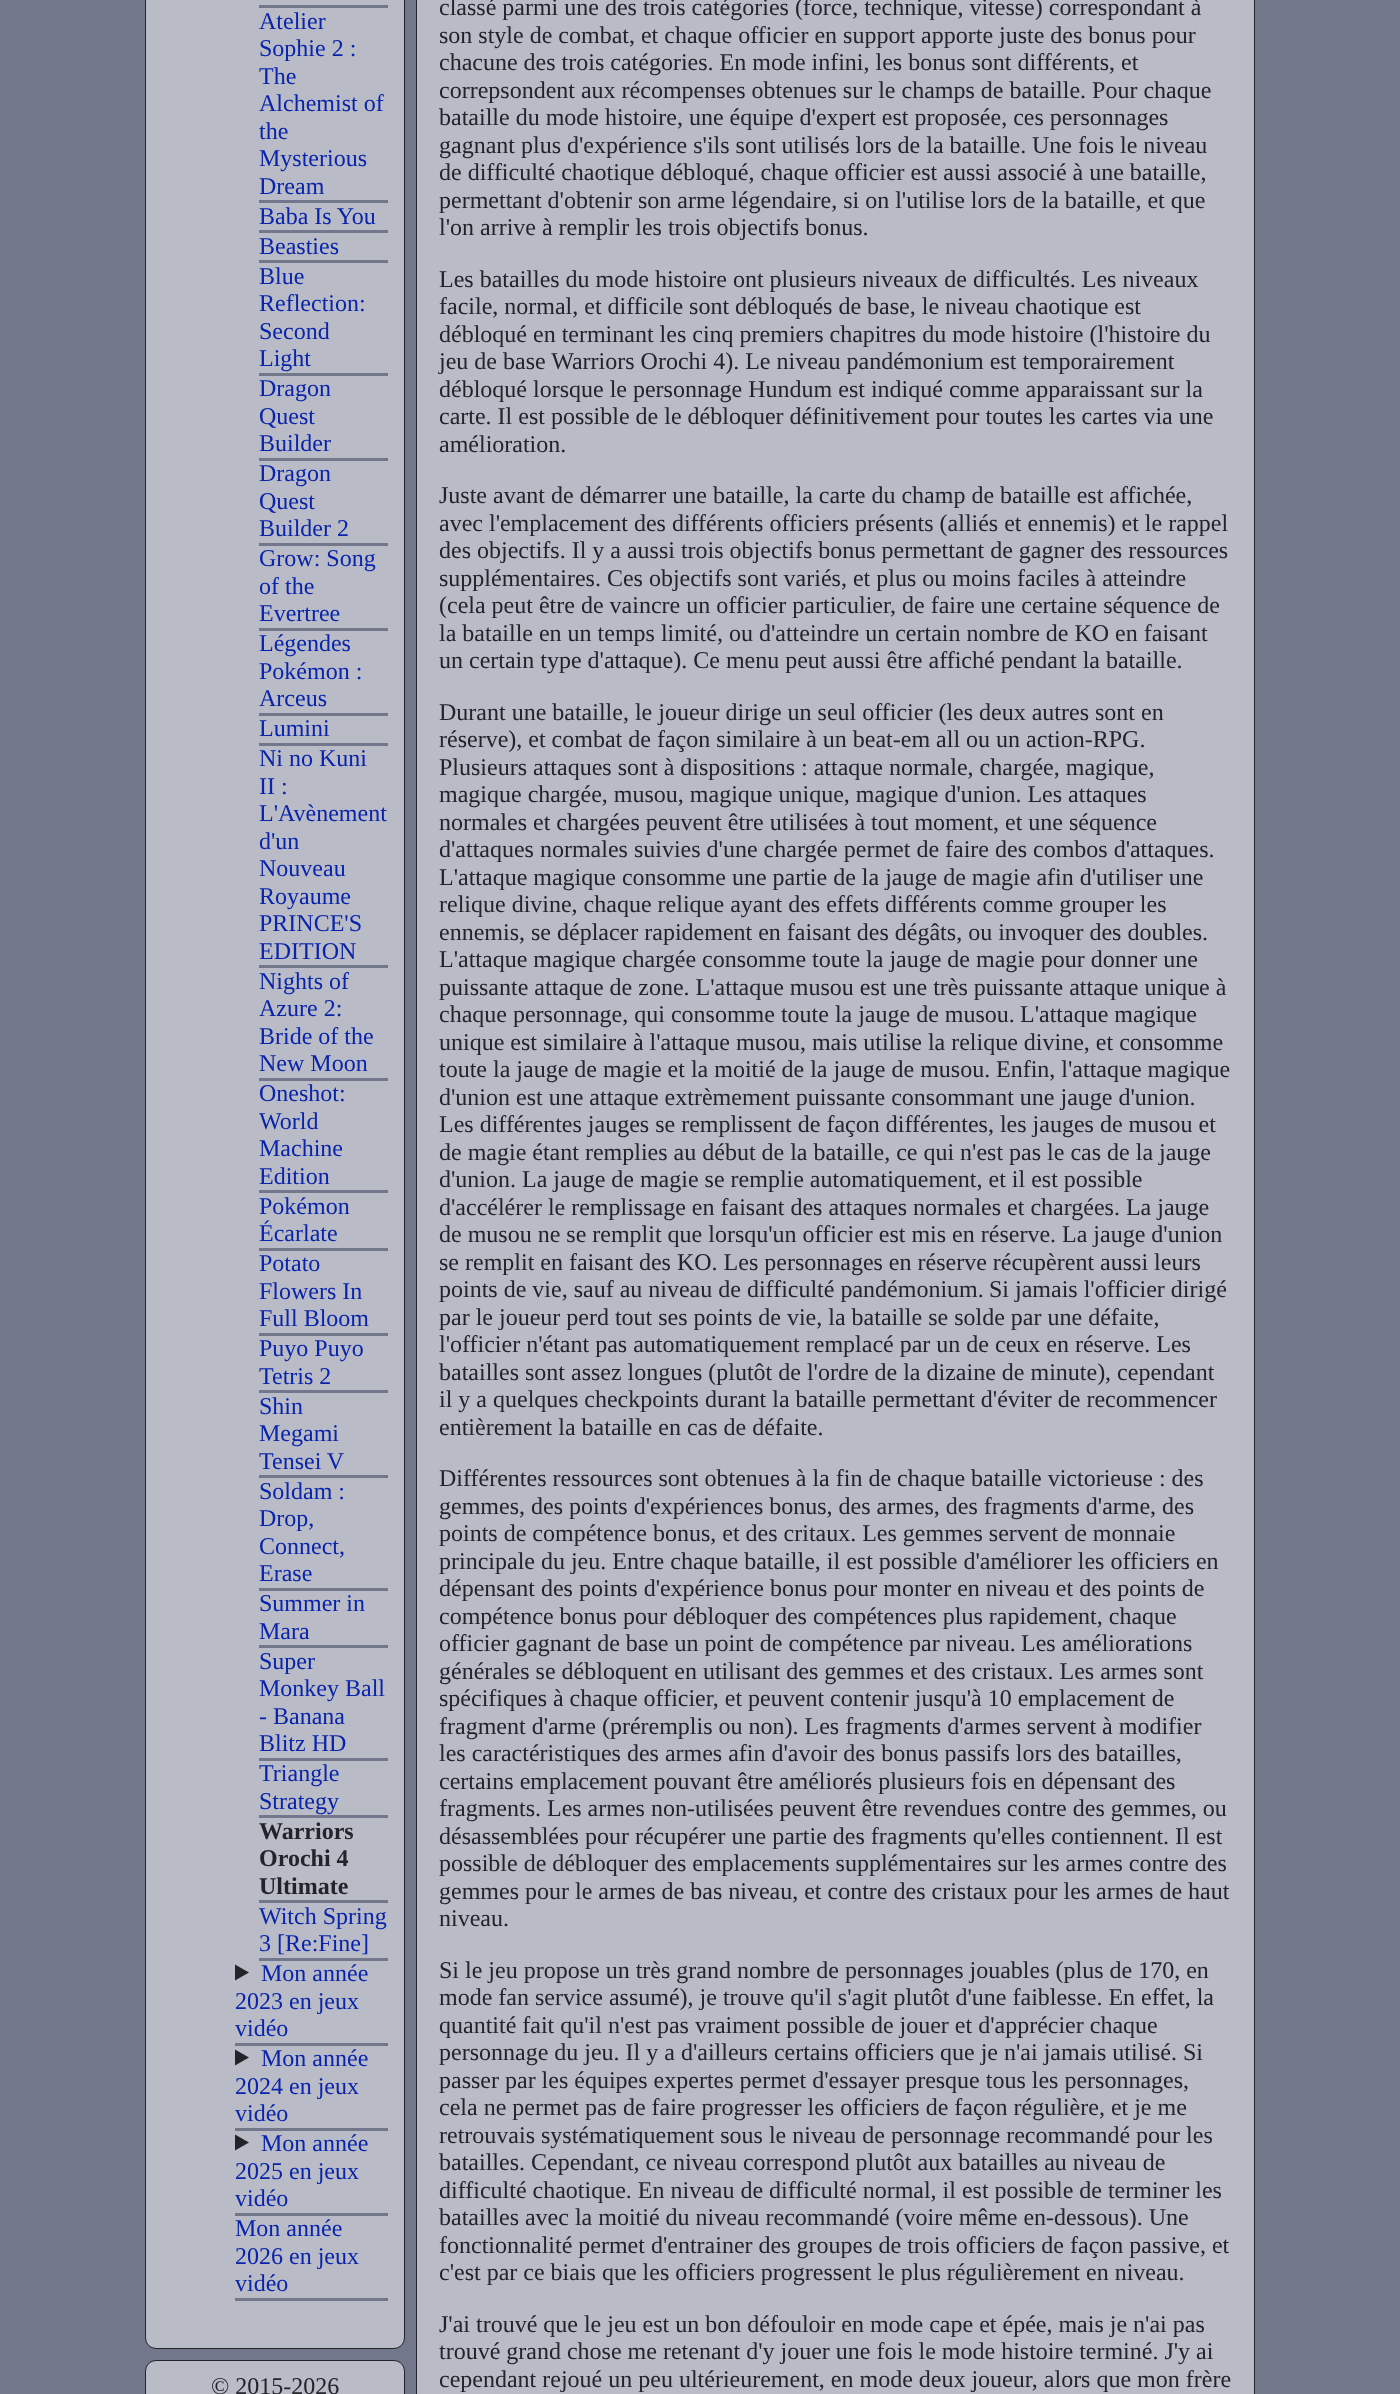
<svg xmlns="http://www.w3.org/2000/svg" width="1400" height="2394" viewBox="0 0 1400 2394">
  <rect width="100%" height="100%" fill="#73778c"/>
  <rect x="145.5" y="-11.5" width="259" height="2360" rx="10.5" fill="#b9bbc6" stroke="#22242a"/>
  <rect x="259" y="5" width="129" height="3" fill="#73778c"/>
  <text x="259" y="29" font-family="Liberation Serif" font-size="24" fill="#0924aa">Atelier</text>
  <text x="259" y="56" font-family="Liberation Serif" font-size="24" fill="#0924aa">Sophie 2 :</text>
  <text x="259" y="84" font-family="Liberation Serif" font-size="24" fill="#0924aa">The</text>
  <text x="259" y="111" font-family="Liberation Serif" font-size="24" fill="#0924aa">Alchemist of</text>
  <text x="259" y="139" font-family="Liberation Serif" font-size="24" fill="#0924aa">the</text>
  <text x="259" y="166" font-family="Liberation Serif" font-size="24" fill="#0924aa">Mysterious</text>
  <text x="259" y="194" font-family="Liberation Serif" font-size="24" fill="#0924aa">Dream</text>
  <rect x="259" y="200" width="129" height="3" fill="#73778c"/>
  <text x="259" y="224" font-family="Liberation Serif" font-size="24" fill="#0924aa">Baba Is You</text>
  <rect x="259" y="230" width="129" height="3" fill="#73778c"/>
  <text x="259" y="254" font-family="Liberation Serif" font-size="24" fill="#0924aa">Beasties</text>
  <rect x="259" y="260" width="129" height="3" fill="#73778c"/>
  <text x="259" y="284" font-family="Liberation Serif" font-size="24" fill="#0924aa">Blue</text>
  <text x="259" y="311" font-family="Liberation Serif" font-size="24" fill="#0924aa">Reflection:</text>
  <text x="259" y="339" font-family="Liberation Serif" font-size="24" fill="#0924aa">Second</text>
  <text x="259" y="366" font-family="Liberation Serif" font-size="24" fill="#0924aa">Light</text>
  <rect x="259" y="373" width="129" height="3" fill="#73778c"/>
  <text x="259" y="396" font-family="Liberation Serif" font-size="24" fill="#0924aa">Dragon</text>
  <text x="259" y="424" font-family="Liberation Serif" font-size="24" fill="#0924aa">Quest</text>
  <text x="259" y="451" font-family="Liberation Serif" font-size="24" fill="#0924aa">Builder</text>
  <rect x="259" y="458" width="129" height="3" fill="#73778c"/>
  <text x="259" y="481" font-family="Liberation Serif" font-size="24" fill="#0924aa">Dragon</text>
  <text x="259" y="509" font-family="Liberation Serif" font-size="24" fill="#0924aa">Quest</text>
  <text x="259" y="536" font-family="Liberation Serif" font-size="24" fill="#0924aa">Builder 2</text>
  <rect x="259" y="543" width="129" height="3" fill="#73778c"/>
  <text x="259" y="566" font-family="Liberation Serif" font-size="24" fill="#0924aa">Grow: Song</text>
  <text x="259" y="594" font-family="Liberation Serif" font-size="24" fill="#0924aa">of the</text>
  <text x="259" y="621" font-family="Liberation Serif" font-size="24" fill="#0924aa">Evertree</text>
  <rect x="259" y="628" width="129" height="3" fill="#73778c"/>
  <text x="259" y="651" font-family="Liberation Serif" font-size="24" fill="#0924aa">Légendes</text>
  <text x="259" y="679" font-family="Liberation Serif" font-size="24" fill="#0924aa">Pokémon :</text>
  <text x="259" y="706" font-family="Liberation Serif" font-size="24" fill="#0924aa">Arceus</text>
  <rect x="259" y="713" width="129" height="3" fill="#73778c"/>
  <text x="259" y="736" font-family="Liberation Serif" font-size="24" fill="#0924aa">Lumini</text>
  <rect x="259" y="743" width="129" height="3" fill="#73778c"/>
  <text x="259" y="766" font-family="Liberation Serif" font-size="24" fill="#0924aa">Ni no Kuni</text>
  <text x="259" y="794" font-family="Liberation Serif" font-size="24" fill="#0924aa">II :</text>
  <text x="259" y="821" font-family="Liberation Serif" font-size="24" fill="#0924aa">L'Avènement</text>
  <text x="259" y="849" font-family="Liberation Serif" font-size="24" fill="#0924aa">d'un</text>
  <text x="259" y="876" font-family="Liberation Serif" font-size="24" fill="#0924aa">Nouveau</text>
  <text x="259" y="904" font-family="Liberation Serif" font-size="24" fill="#0924aa">Royaume</text>
  <text x="259" y="931" font-family="Liberation Serif" font-size="24" fill="#0924aa">PRINCE'S</text>
  <text x="259" y="959" font-family="Liberation Serif" font-size="24" fill="#0924aa">EDITION</text>
  <rect x="259" y="965" width="129" height="3" fill="#73778c"/>
  <text x="259" y="989" font-family="Liberation Serif" font-size="24" fill="#0924aa">Nights of</text>
  <text x="259" y="1016" font-family="Liberation Serif" font-size="24" fill="#0924aa">Azure 2:</text>
  <text x="259" y="1044" font-family="Liberation Serif" font-size="24" fill="#0924aa">Bride of the</text>
  <text x="259" y="1071" font-family="Liberation Serif" font-size="24" fill="#0924aa">New Moon</text>
  <rect x="259" y="1078" width="129" height="3" fill="#73778c"/>
  <text x="259" y="1101" font-family="Liberation Serif" font-size="24" fill="#0924aa">Oneshot:</text>
  <text x="259" y="1129" font-family="Liberation Serif" font-size="24" fill="#0924aa">World</text>
  <text x="259" y="1156" font-family="Liberation Serif" font-size="24" fill="#0924aa">Machine</text>
  <text x="259" y="1184" font-family="Liberation Serif" font-size="24" fill="#0924aa">Edition</text>
  <rect x="259" y="1190" width="129" height="3" fill="#73778c"/>
  <text x="259" y="1214" font-family="Liberation Serif" font-size="24" fill="#0924aa">Pokémon</text>
  <text x="259" y="1241" font-family="Liberation Serif" font-size="24" fill="#0924aa">Écarlate</text>
  <rect x="259" y="1248" width="129" height="3" fill="#73778c"/>
  <text x="259" y="1271" font-family="Liberation Serif" font-size="24" fill="#0924aa">Potato</text>
  <text x="259" y="1299" font-family="Liberation Serif" font-size="24" fill="#0924aa">Flowers In</text>
  <text x="259" y="1326" font-family="Liberation Serif" font-size="24" fill="#0924aa">Full Bloom</text>
  <rect x="259" y="1333" width="129" height="3" fill="#73778c"/>
  <text x="259" y="1356" font-family="Liberation Serif" font-size="24" fill="#0924aa">Puyo Puyo</text>
  <text x="259" y="1384" font-family="Liberation Serif" font-size="24" fill="#0924aa">Tetris 2</text>
  <rect x="259" y="1390" width="129" height="3" fill="#73778c"/>
  <text x="259" y="1414" font-family="Liberation Serif" font-size="24" fill="#0924aa">Shin</text>
  <text x="259" y="1441" font-family="Liberation Serif" font-size="24" fill="#0924aa">Megami</text>
  <text x="259" y="1469" font-family="Liberation Serif" font-size="24" fill="#0924aa">Tensei V</text>
  <rect x="259" y="1475" width="129" height="3" fill="#73778c"/>
  <text x="259" y="1499" font-family="Liberation Serif" font-size="24" fill="#0924aa">Soldam :</text>
  <text x="259" y="1526" font-family="Liberation Serif" font-size="24" fill="#0924aa">Drop,</text>
  <text x="259" y="1554" font-family="Liberation Serif" font-size="24" fill="#0924aa">Connect,</text>
  <text x="259" y="1581" font-family="Liberation Serif" font-size="24" fill="#0924aa">Erase</text>
  <rect x="259" y="1588" width="129" height="3" fill="#73778c"/>
  <text x="259" y="1611" font-family="Liberation Serif" font-size="24" fill="#0924aa">Summer in</text>
  <text x="259" y="1639" font-family="Liberation Serif" font-size="24" fill="#0924aa">Mara</text>
  <rect x="259" y="1645" width="129" height="3" fill="#73778c"/>
  <text x="259" y="1669" font-family="Liberation Serif" font-size="24" fill="#0924aa">Super</text>
  <text x="259" y="1696" font-family="Liberation Serif" font-size="24" fill="#0924aa">Monkey Ball</text>
  <text x="259" y="1724" font-family="Liberation Serif" font-size="24" fill="#0924aa">- Banana</text>
  <text x="259" y="1751" font-family="Liberation Serif" font-size="24" fill="#0924aa">Blitz HD</text>
  <rect x="259" y="1758" width="129" height="3" fill="#73778c"/>
  <text x="259" y="1781" font-family="Liberation Serif" font-size="24" fill="#0924aa">Triangle</text>
  <text x="259" y="1809" font-family="Liberation Serif" font-size="24" fill="#0924aa">Strategy</text>
  <rect x="259" y="1815" width="129" height="3" fill="#73778c"/>
  <text x="259" y="1839" font-family="Liberation Serif" font-size="24" font-weight="bold" fill="#22242a">Warriors</text>
  <text x="259" y="1866" font-family="Liberation Serif" font-size="24" font-weight="bold" fill="#22242a">Orochi 4</text>
  <text x="259" y="1894" font-family="Liberation Serif" font-size="24" font-weight="bold" fill="#22242a">Ultimate</text>
  <rect x="259" y="1900" width="129" height="3" fill="#73778c"/>
  <text x="259" y="1924" font-family="Liberation Serif" font-size="24" fill="#0924aa">Witch Spring</text>
  <text x="259" y="1951" font-family="Liberation Serif" font-size="24" fill="#0924aa">3 [Re:Fine]</text>
  <rect x="259" y="1958" width="129" height="3" fill="#73778c"/>
  <text x="261" y="1981" font-family="Liberation Serif" font-size="24" fill="#0924aa">Mon année</text>
  <text x="235" y="2009" font-family="Liberation Serif" font-size="24" fill="#0924aa">2023 en jeux</text>
  <text x="235" y="2036" font-family="Liberation Serif" font-size="24" fill="#0924aa">vidéo</text>
  <rect x="235" y="2043" width="153" height="3" fill="#73778c"/>
  <path d="M235 1964.5L249 1972.5L235 1980.5Z" fill="#22242a"/>
  <text x="261" y="2066" font-family="Liberation Serif" font-size="24" fill="#0924aa">Mon année</text>
  <text x="235" y="2094" font-family="Liberation Serif" font-size="24" fill="#0924aa">2024 en jeux</text>
  <text x="235" y="2121" font-family="Liberation Serif" font-size="24" fill="#0924aa">vidéo</text>
  <rect x="235" y="2128" width="153" height="3" fill="#73778c"/>
  <path d="M235 2049.5L249 2057.5L235 2065.5Z" fill="#22242a"/>
  <text x="261" y="2151" font-family="Liberation Serif" font-size="24" fill="#0924aa">Mon année</text>
  <text x="235" y="2179" font-family="Liberation Serif" font-size="24" fill="#0924aa">2025 en jeux</text>
  <text x="235" y="2206" font-family="Liberation Serif" font-size="24" fill="#0924aa">vidéo</text>
  <rect x="235" y="2213" width="153" height="3" fill="#73778c"/>
  <path d="M235 2134.5L249 2142.5L235 2150.5Z" fill="#22242a"/>
  <text x="235" y="2236" font-family="Liberation Serif" font-size="24" fill="#0924aa">Mon année</text>
  <text x="235" y="2264" font-family="Liberation Serif" font-size="24" fill="#0924aa">2026 en jeux</text>
  <text x="235" y="2291" font-family="Liberation Serif" font-size="24" fill="#0924aa">vidéo</text>
  <rect x="235" y="2298" width="153" height="3" fill="#73778c"/>
  <rect x="416.5" y="-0.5" width="838" height="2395" fill="#b9bbc6" stroke="#22242a"/>
  <text x="439" y="15" font-family="Liberation Serif" font-size="24" fill="#22242a">classé parmi une des trois catégories (force, technique, vitesse) correspondant à</text>
  <text x="439" y="43" font-family="Liberation Serif" font-size="24" fill="#22242a">son style de combat, et chaque officier en support apporte juste des bonus pour</text>
  <text x="439" y="70" font-family="Liberation Serif" font-size="24" fill="#22242a">chacune des trois catégories. En mode infini, les bonus sont différents, et</text>
  <text x="439" y="98" font-family="Liberation Serif" font-size="24" fill="#22242a">correpsondent aux récompenses obtenues sur le champs de bataille. Pour chaque</text>
  <text x="439" y="125" font-family="Liberation Serif" font-size="24" fill="#22242a">bataille du mode histoire, une équipe d'expert est proposée, ces personnages</text>
  <text x="439" y="153" font-family="Liberation Serif" font-size="24" fill="#22242a">gagnant plus d'expérience s'ils sont utilisés lors de la bataille.</text>
  <text x="1032" y="153" font-family="Liberation Serif" font-size="24" fill="#22242a">Une fois le niveau</text>
  <text x="439" y="180" font-family="Liberation Serif" font-size="24" fill="#22242a">de difficulté chaotique débloqué, chaque officier est aussi associé à une bataille,</text>
  <text x="439" y="208" font-family="Liberation Serif" font-size="24" fill="#22242a">permettant d'obtenir son arme légendaire, si on l'utilise lors de la bataille, et que</text>
  <text x="439" y="235" font-family="Liberation Serif" font-size="24" fill="#22242a">l'on arrive à remplir les trois objectifs bonus.</text>
  <text x="439" y="287" font-family="Liberation Serif" font-size="24" fill="#22242a">Les batailles du mode histoire ont plusieurs niveaux de difficultés. Les niveaux</text>
  <text x="439" y="314" font-family="Liberation Serif" font-size="24" fill="#22242a">facile, normal, et difficile sont débloqués de base, le niveau chaotique est</text>
  <text x="439" y="342" font-family="Liberation Serif" font-size="24" fill="#22242a">débloqué en terminant les cinq premiers chapitres du mode histoire (l'histoire du</text>
  <text x="439" y="369" font-family="Liberation Serif" font-size="24" fill="#22242a">jeu de base Warriors Orochi 4). Le niveau pandémonium est temporairement</text>
  <text x="439" y="397" font-family="Liberation Serif" font-size="24" fill="#22242a">débloqué lorsque le personnage Hundum est indiqué comme apparaissant sur la</text>
  <text x="439" y="424" font-family="Liberation Serif" font-size="24" fill="#22242a">carte. Il est possible de le débloquer définitivement pour toutes les cartes via une</text>
  <text x="439" y="452" font-family="Liberation Serif" font-size="24" fill="#22242a">amélioration.</text>
  <text x="439" y="503" font-family="Liberation Serif" font-size="24" fill="#22242a">Juste avant de démarrer une bataille, la carte du champ de bataille est affichée,</text>
  <text x="439" y="531" font-family="Liberation Serif" font-size="24" fill="#22242a">avec l'emplacement des différents officiers présents (alliés et ennemis) et le rappel</text>
  <text x="439" y="558" font-family="Liberation Serif" font-size="24" fill="#22242a">des objectifs. Il y a aussi trois objectifs bonus permettant de gagner des ressources</text>
  <text x="439" y="586" font-family="Liberation Serif" font-size="24" fill="#22242a">supplémentaires. Ces objectifs sont variés, et plus ou moins faciles à atteindre</text>
  <text x="439" y="613" font-family="Liberation Serif" font-size="24" fill="#22242a">(cela peut être de vaincre un officier particulier, de faire une certaine séquence de</text>
  <text x="439" y="641" font-family="Liberation Serif" font-size="24" fill="#22242a">la bataille en un temps limité, ou d'atteindre un certain nombre de KO en faisant</text>
  <text x="439" y="668" font-family="Liberation Serif" font-size="24" fill="#22242a">un certain type d'attaque). Ce menu peut aussi être affiché pendant la bataille.</text>
  <text x="439" y="720" font-family="Liberation Serif" font-size="24" fill="#22242a">Durant une bataille, le joueur dirige un seul officier (les deux autres sont en</text>
  <text x="439" y="747" font-family="Liberation Serif" font-size="24" fill="#22242a">réserve), et combat de façon similaire à un beat-em all ou un action-RPG.</text>
  <text x="439" y="775" font-family="Liberation Serif" font-size="24" fill="#22242a">Plusieurs attaques sont à dispositions : attaque normale, chargée, magique,</text>
  <text x="439" y="802" font-family="Liberation Serif" font-size="24" fill="#22242a">magique chargée, musou, magique unique, magique d'union. Les attaques</text>
  <text x="439" y="830" font-family="Liberation Serif" font-size="24" fill="#22242a">normales et chargées peuvent être utilisées à tout moment, et une séquence</text>
  <text x="439" y="857" font-family="Liberation Serif" font-size="24" fill="#22242a">d'attaques normales suivies d'une chargée permet de faire des combos d'attaques.</text>
  <text x="439" y="885" font-family="Liberation Serif" font-size="24" fill="#22242a">L'attaque magique consomme une partie de la jauge de magie afin d'utiliser une</text>
  <text x="439" y="912" font-family="Liberation Serif" font-size="24" fill="#22242a">relique divine, chaque relique ayant des effets différents comme grouper les</text>
  <text x="439" y="940" font-family="Liberation Serif" font-size="24" fill="#22242a">ennemis, se déplacer rapidement en faisant des dégâts, ou invoquer des doubles.</text>
  <text x="439" y="967" font-family="Liberation Serif" font-size="24" fill="#22242a">L'attaque magique chargée consomme toute la jauge de magie pour donner une</text>
  <text x="439" y="995" font-family="Liberation Serif" font-size="24" fill="#22242a">puissante attaque de zone. L'attaque musou est une très puissante attaque unique à</text>
  <text x="439" y="1022" font-family="Liberation Serif" font-size="24" fill="#22242a">chaque personnage, qui consomme toute la jauge de musou.</text>
  <text x="1020" y="1022" font-family="Liberation Serif" font-size="24" fill="#22242a">L'attaque magique</text>
  <text x="439" y="1050" font-family="Liberation Serif" font-size="24" fill="#22242a">unique est similaire à l'attaque musou, mais utilise la relique divine, et consomme</text>
  <text x="439" y="1077" font-family="Liberation Serif" font-size="24" fill="#22242a">toute la jauge de magie et la moitié de la jauge de musou.</text>
  <text x="996" y="1077" font-family="Liberation Serif" font-size="24" fill="#22242a">Enfin, l'attaque magique</text>
  <text x="439" y="1105" font-family="Liberation Serif" font-size="24" fill="#22242a">d'union est une attaque extrèmement puissante consommant une jauge d'union.</text>
  <text x="439" y="1132" font-family="Liberation Serif" font-size="24" fill="#22242a">Les différentes jauges se remplissent de façon différentes, les jauges de musou et</text>
  <text x="439" y="1160" font-family="Liberation Serif" font-size="24" fill="#22242a">de magie étant remplies au début de la bataille, ce qui n'est pas le cas de la jauge</text>
  <text x="439" y="1187" font-family="Liberation Serif" font-size="24" fill="#22242a">d'union. La jauge de magie se remplie automatiquement, et il est possible</text>
  <text x="439" y="1215" font-family="Liberation Serif" font-size="24" fill="#22242a">d'accélérer le remplissage en faisant des attaques normales et chargées. La jauge</text>
  <text x="439" y="1242" font-family="Liberation Serif" font-size="24" fill="#22242a">de musou ne se remplit que lorsqu'un officier est mis en réserve. La jauge d'union</text>
  <text x="439" y="1270" font-family="Liberation Serif" font-size="24" fill="#22242a">se remplit en faisant des KO. Les personnages en réserve récupèrent aussi leurs</text>
  <text x="439" y="1297" font-family="Liberation Serif" font-size="24" fill="#22242a">points de vie, sauf au niveau de difficulté pandémonium.</text>
  <text x="989" y="1297" font-family="Liberation Serif" font-size="24" fill="#22242a">Si jamais l'officier dirigé</text>
  <text x="439" y="1325" font-family="Liberation Serif" font-size="24" fill="#22242a">par le joueur perd tout ses points de vie, la bataille se solde par une défaite,</text>
  <text x="439" y="1352" font-family="Liberation Serif" font-size="24" fill="#22242a">l'officier n'étant pas automatiquement remplacé par un de ceux en réserve. Les</text>
  <text x="439" y="1380" font-family="Liberation Serif" font-size="24" fill="#22242a">batailles sont assez longues (plutôt de l'ordre de la dizaine de minute), cependant</text>
  <text x="439" y="1407" font-family="Liberation Serif" font-size="24" fill="#22242a">il y a quelques checkpoints durant la bataille permettant d'éviter de recommencer</text>
  <text x="439" y="1435" font-family="Liberation Serif" font-size="24" fill="#22242a">entièrement la bataille en cas de défaite.</text>
  <text x="439" y="1486" font-family="Liberation Serif" font-size="24" fill="#22242a">Différentes ressources sont obtenues à la fin de chaque bataille victorieuse : des</text>
  <text x="439" y="1514" font-family="Liberation Serif" font-size="24" fill="#22242a">gemmes, des points d'expériences bonus, des armes, des fragments d'arme, des</text>
  <text x="439" y="1541" font-family="Liberation Serif" font-size="24" fill="#22242a">points de compétence bonus, et des critaux. Les gemmes servent de monnaie</text>
  <text x="439" y="1569" font-family="Liberation Serif" font-size="24" fill="#22242a">principale du jeu. Entre chaque bataille, il est possible d'améliorer les officiers en</text>
  <text x="439" y="1596" font-family="Liberation Serif" font-size="24" fill="#22242a">dépensant des points d'expérience bonus pour monter en niveau et des points de</text>
  <text x="439" y="1624" font-family="Liberation Serif" font-size="24" fill="#22242a">compétence bonus pour débloquer des compétences plus rapidement, chaque</text>
  <text x="439" y="1651" font-family="Liberation Serif" font-size="24" fill="#22242a">officier gagnant de base un point de compétence par niveau.</text>
  <text x="1021" y="1651" font-family="Liberation Serif" font-size="24" fill="#22242a">Les améliorations</text>
  <text x="439" y="1679" font-family="Liberation Serif" font-size="24" fill="#22242a">générales se débloquent en utilisant des gemmes et des cristaux. Les armes sont</text>
  <text x="439" y="1706" font-family="Liberation Serif" font-size="24" fill="#22242a">spécifiques à chaque officier, et peuvent contenir jusqu'à 10 emplacement de</text>
  <text x="439" y="1734" font-family="Liberation Serif" font-size="24" fill="#22242a">fragment d'arme (préremplis ou non). Les fragments d'armes servent à modifier</text>
  <text x="439" y="1761" font-family="Liberation Serif" font-size="24" fill="#22242a">les caractéristiques des armes afin d'avoir des bonus passifs lors des batailles,</text>
  <text x="439" y="1789" font-family="Liberation Serif" font-size="24" fill="#22242a">certains emplacement pouvant être améliorés plusieurs fois en dépensant des</text>
  <text x="439" y="1816" font-family="Liberation Serif" font-size="24" fill="#22242a">fragments. Les armes non-utilisées peuvent être revendues contre des gemmes, ou</text>
  <text x="439" y="1844" font-family="Liberation Serif" font-size="24" fill="#22242a">désassemblées pour récupérer une partie des fragments qu'elles contiennent. Il est</text>
  <text x="439" y="1871" font-family="Liberation Serif" font-size="24" fill="#22242a">possible de débloquer des emplacements supplémentaires sur les armes contre des</text>
  <text x="439" y="1899" font-family="Liberation Serif" font-size="24" fill="#22242a">gemmes pour le armes de bas niveau, et contre des cristaux pour les armes de haut</text>
  <text x="439" y="1926" font-family="Liberation Serif" font-size="24" fill="#22242a">niveau.</text>
  <text x="439" y="1978" font-family="Liberation Serif" font-size="24" fill="#22242a">Si le jeu propose un très grand nombre de personnages jouables (plus de 170, en</text>
  <text x="439" y="2005" font-family="Liberation Serif" font-size="24" fill="#22242a">mode fan service assumé), je trouve qu'il s'agit plutôt d'une faiblesse. En effet, la</text>
  <text x="439" y="2033" font-family="Liberation Serif" font-size="24" fill="#22242a">quantité fait qu'il n'est pas vraiment possible de jouer et d'apprécier chaque</text>
  <text x="439" y="2060" font-family="Liberation Serif" font-size="24" fill="#22242a">personnage du jeu. Il y a d'ailleurs certains officiers que je n'ai jamais utilisé.</text>
  <text x="1183" y="2060" font-family="Liberation Serif" font-size="24" fill="#22242a">Si</text>
  <text x="439" y="2088" font-family="Liberation Serif" font-size="24" fill="#22242a">passer par les équipes expertes permet d'essayer presque tous les personnages,</text>
  <text x="439" y="2115" font-family="Liberation Serif" font-size="24" fill="#22242a">cela ne permet pas de faire progresser les officiers de façon régulière, et je me</text>
  <text x="439" y="2143" font-family="Liberation Serif" font-size="24" fill="#22242a">retrouvais systématiquement sous le niveau de personnage recommandé pour les</text>
  <text x="439" y="2170" font-family="Liberation Serif" font-size="24" fill="#22242a">batailles. Cependant, ce niveau correspond plutôt aux batailles au niveau de</text>
  <text x="439" y="2198" font-family="Liberation Serif" font-size="24" fill="#22242a">difficulté chaotique. En niveau de difficulté normal, il est possible de terminer les</text>
  <text x="439" y="2225" font-family="Liberation Serif" font-size="24" fill="#22242a">batailles avec la moitié du niveau recommandé (voire même en-dessous). Une</text>
  <text x="439" y="2253" font-family="Liberation Serif" font-size="24" fill="#22242a">fonctionnalité permet d'entrainer des groupes de trois officiers de façon passive, et</text>
  <text x="439" y="2280" font-family="Liberation Serif" font-size="24" fill="#22242a">c'est par ce biais que les officiers progressent le plus régulièrement en niveau.</text>
  <text x="439" y="2332" font-family="Liberation Serif" font-size="24" fill="#22242a">J'ai trouvé que le jeu est un bon défouloir en mode cape et épée, mais je n'ai pas</text>
  <text x="439" y="2359" font-family="Liberation Serif" font-size="24" fill="#22242a">trouvé grand chose me retenant d'y jouer une fois le mode histoire terminé. J'y ai</text>
  <text x="439" y="2387" font-family="Liberation Serif" font-size="24" fill="#22242a">cependant rejoué un peu ultérieurement, en mode deux joueur, alors que mon frère</text>
  <rect x="145.5" y="2360.5" width="259" height="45" rx="10.5" fill="#b9bbc6" stroke="#22242a"/>
  <text x="211" y="2394" font-family="Liberation Serif" font-size="24" fill="#22242a">© 2015-2026</text>
</svg>
